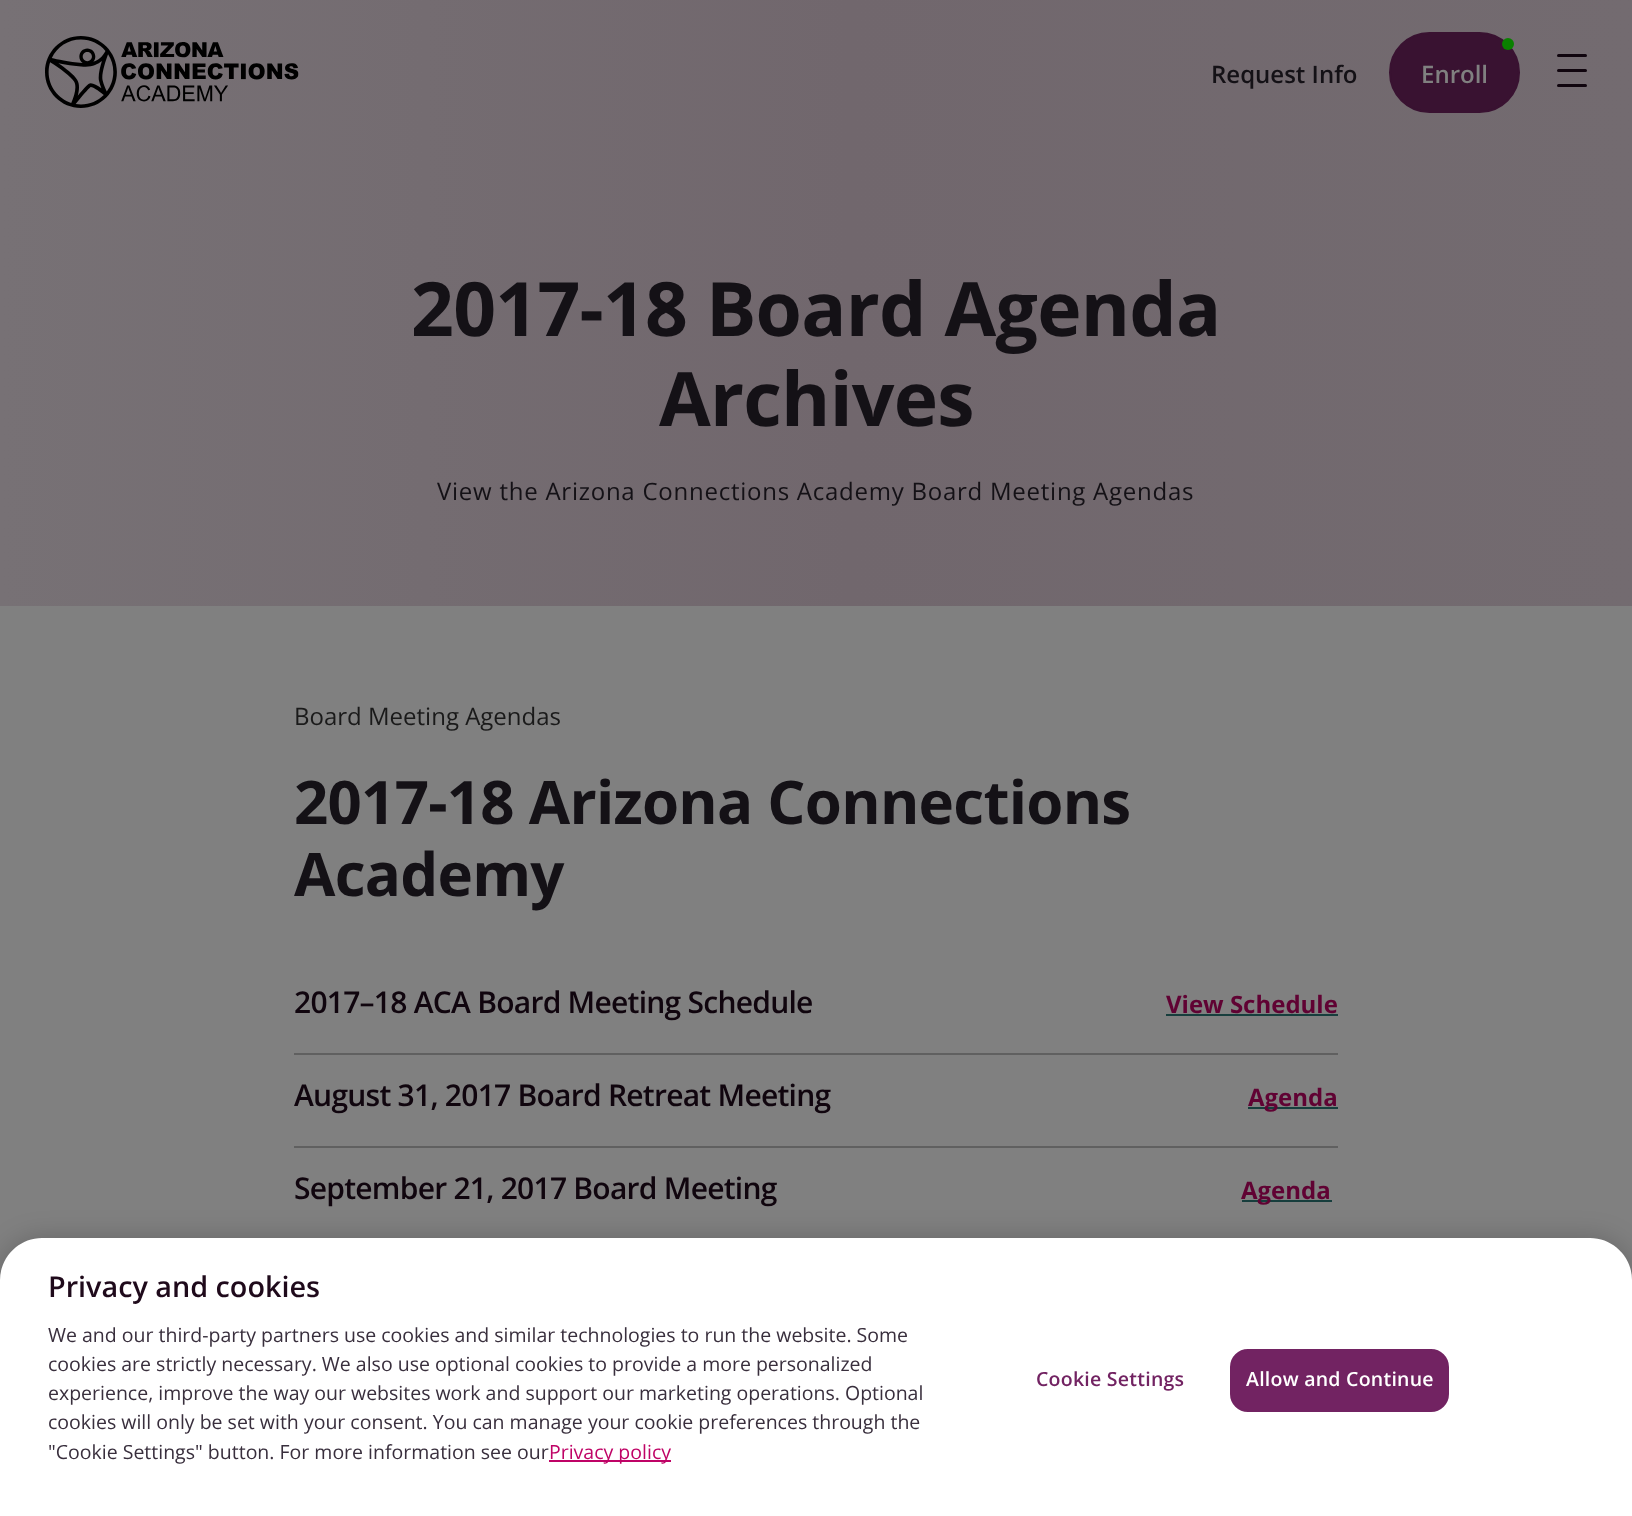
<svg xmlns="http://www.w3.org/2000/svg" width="1632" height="1516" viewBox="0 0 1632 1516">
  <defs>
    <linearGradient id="g1" gradientUnits="userSpaceOnUse" x1="0" y1="303" x2="1632" y2="303"><stop offset="0" stop-color="#777175"/><stop offset="0.52" stop-color="#71676d"/><stop offset="1" stop-color="#736b70"/></linearGradient>
    <filter id="blur1" x="-50%" y="-200%" width="200%" height="500%"><feGaussianBlur stdDeviation="13.5"/></filter>
  </defs>
  <rect width="100%" height="100%" fill="#808080"/>
  <rect x="0" y="0" width="1632" height="606" fill="url(#g1)"/>
  <image x="45" y="36" width="254" height="72" href="img1.png"/>
  <text x="1211" y="83" font-family="Open Sans" font-size="24" font-weight="600" fill="#141116">Request Info</text>
  <rect x="1390" y="33" width="129" height="79" rx="39.5" fill="#391231" stroke="#391231" stroke-width="2"/>
  <circle cx="1508" cy="44" r="6" fill="#0a8000"/>
  <text x="1421" y="83" font-family="Open Sans" font-size="24" font-weight="600" fill="#808080">Enroll</text>
  <rect x="1557" y="69" width="30" height="3" rx="1.5" fill="#10050e"/>
  <rect x="1557" y="54" width="30" height="3" rx="1.5" fill="#10050e"/>
  <rect x="1557" y="84" width="30" height="3" rx="1.5" fill="#10050e"/>
  <text x="411" y="336" font-family="Open Sans" font-size="75" font-weight="bold" letter-spacing="-0.75" fill="#141116">2017-18 Board Agenda</text>
  <text x="659" y="426" font-family="Open Sans" font-size="75" font-weight="bold" letter-spacing="-0.75" fill="#141116">Archives</text>
  <text x="437" y="500" font-family="Open Sans" font-size="24" letter-spacing="0.75" fill="#141116">View the Arizona Connections Academy Board Meeting Agendas</text>
  <text x="294" y="725" font-family="Open Sans" font-size="24" fill="#1a1a1a">Board Meeting Agendas</text>
  <text x="294" y="824" font-family="Open Sans" font-size="60" font-weight="bold" letter-spacing="-0.75" fill="#141116">2017-18 Arizona Connections</text>
  <text x="294" y="896" font-family="Open Sans" font-size="60" font-weight="bold" letter-spacing="-0.75" fill="#141116">Academy</text>
  <text x="294" y="1013" font-family="Open Sans" font-size="30" font-weight="600" letter-spacing="-0.75" fill="#10050e">2017–18 ACA Board Meeting Schedule</text>
  <text x="1166" y="1013" font-family="Open Sans" font-size="24" font-weight="bold" fill="#600233">View Schedule</text>
  <rect x="1166" y="1014" width="172" height="2" fill="#173e3d"/>
  <rect x="294" y="1053" width="1044" height="2" fill="#606060"/>
  <text x="294" y="1106" font-family="Open Sans" font-size="30" font-weight="600" letter-spacing="-0.75" fill="#10050e">August 31, 2017 Board Retreat Meeting</text>
  <rect x="1248" y="1107" width="90" height="2" fill="#173e3d"/>
  <text x="1248" y="1106" font-family="Open Sans" font-size="24" font-weight="bold" fill="#600233">Agenda</text>
  <rect x="294" y="1146" width="1044" height="2" fill="#606060"/>
  <text x="294" y="1199" font-family="Open Sans" font-size="30" font-weight="600" letter-spacing="-0.75" fill="#10050e">September 21, 2017 Board Meeting</text>
  <rect x="1242" y="1200" width="90" height="2" fill="#173e3d"/>
  <text x="1241" y="1199" font-family="Open Sans" font-size="24" font-weight="bold" fill="#600233">Agenda</text>
  <rect x="0" y="1238" width="1632" height="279" rx="42" fill="#000000" fill-opacity="0.2" filter="url(#blur1)"/>
  <path d="M42 1238H1590C1613 1238 1632 1257 1632 1280V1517H0V1280C0 1257 19 1238 42 1238Z" fill="#ffffff"/>
  <text x="48" y="1297" font-family="Open Sans" font-size="28.75" font-weight="600" fill="#1f0a1b">Privacy and cookies</text>
  <text x="48" y="1342" font-family="Open Sans" font-size="19.5" fill="#392f3d">We and our third-party partners use cookies and similar technologies to run the website. Some</text>
  <text x="48" y="1371" font-family="Open Sans" font-size="19.5" fill="#392f3d">cookies are strictly necessary. We also use optional cookies to provide a more personalized</text>
  <text x="48" y="1400" font-family="Open Sans" font-size="19.5" fill="#392f3d">experience, improve the way our websites work and support our marketing operations. Optional</text>
  <text x="48" y="1429" font-family="Open Sans" font-size="19.5" fill="#392f3d">cookies will only be set with your consent. You can manage your cookie preferences through the</text>
  <text x="48" y="1459" font-family="Open Sans" font-size="19.5" fill="#392f3d">"Cookie Settings" button. For more information see our</text>
  <rect x="549" y="1460" width="122" height="2" fill="#bf0366"/>
  <text x="549" y="1459" font-family="Open Sans" font-size="19.5" fill="#bf0366">Privacy policy</text>
  <text x="1036" y="1386" font-family="Open Sans" font-size="19.5" font-weight="600" letter-spacing="0.25" fill="#722362">Cookie Settings</text>
  <rect x="1231" y="1350" width="217" height="61" rx="17" fill="#722362" stroke="#722362" stroke-width="2"/>
  <text x="1246" y="1386" font-family="Open Sans" font-size="19.5" font-weight="600" letter-spacing="0.25" fill="#ffffff">Allow and Continue</text>
</svg>
